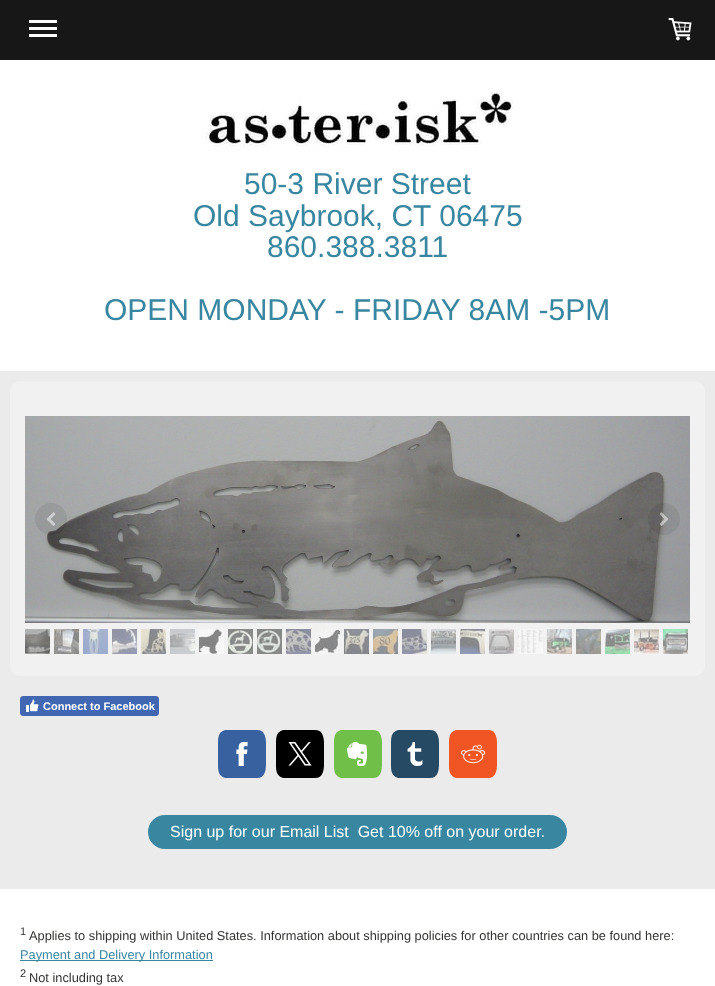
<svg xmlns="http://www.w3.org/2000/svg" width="715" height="986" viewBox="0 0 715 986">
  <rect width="100%" height="100%" fill="#ffffff"/>
  <rect x="0" y="0" width="715" height="60" fill="#171717"/>
  <rect x="29" y="27" width="28" height="3" fill="#ffffff"/>
  <rect x="29" y="20" width="28" height="3" fill="#ffffff"/>
  <rect x="29" y="34" width="28" height="3" fill="#ffffff"/>
  <image x="668" y="18" width="24" height="23" href="img1.png"/>
  <image x="204" y="91" width="309" height="58" href="img2.png"/>
  <text x="244" y="194" font-family="Arimo" font-size="30" fill="#3986a0">50-3 River Street</text>
  <text x="193" y="226" font-family="Arimo" font-size="30" fill="#3986a0">Old Saybrook, CT 06475</text>
  <text x="267" y="257" font-family="Arimo" font-size="30" fill="#3986a0">860.388.3811</text>
  <text x="104" y="320" font-family="Arimo" font-size="30" fill="#3986a0">OPEN MONDAY - FRIDAY 8AM -5PM</text>
  <rect x="0" y="371" width="715" height="518" fill="#ebebeb"/>
  <rect x="10" y="381" width="695" height="295" rx="10" fill="#f1f1f1"/>
  <image x="25" y="416" width="665" height="207" href="img3.png"/>
  <circle cx="51" cy="519" r="16" fill="#000000" fill-opacity="0.07"/>
  <image x="46" y="512" width="10" height="14" href="img4.png"/>
  <circle cx="664" cy="519" r="16" fill="#000000" fill-opacity="0.07"/>
  <image x="659" y="512" width="10" height="14" href="img5.png"/>
  <image x="25" y="629" width="25" height="25" href="img6.png"/>
  <image x="54" y="629" width="25" height="25" href="img7.png"/>
  <image x="83" y="629" width="25" height="25" href="img8.png"/>
  <image x="112" y="629" width="25" height="25" href="img9.png"/>
  <image x="141" y="629" width="25" height="25" href="img10.png"/>
  <image x="170" y="629" width="25" height="25" href="img11.png"/>
  <image x="199" y="629" width="25" height="25" href="img12.png"/>
  <image x="228" y="629" width="25" height="25" href="img13.png"/>
  <image x="257" y="629" width="25" height="25" href="img14.png"/>
  <image x="286" y="629" width="25" height="25" href="img15.png"/>
  <image x="315" y="629" width="25" height="25" href="img16.png"/>
  <image x="344" y="629" width="25" height="25" href="img17.png"/>
  <image x="373" y="629" width="25" height="25" href="img18.png"/>
  <image x="402" y="629" width="25" height="25" href="img19.png"/>
  <image x="431" y="629" width="25" height="25" href="img20.png"/>
  <image x="460" y="629" width="25" height="25" href="img21.png"/>
  <image x="489" y="629" width="25" height="25" href="img22.png"/>
  <image x="518" y="629" width="25" height="25" href="img23.png"/>
  <image x="547" y="629" width="25" height="25" href="img24.png"/>
  <image x="576" y="629" width="25" height="25" href="img25.png"/>
  <image x="605" y="629" width="25" height="25" href="img26.png"/>
  <image x="634" y="629" width="25" height="25" href="img27.png"/>
  <image x="663" y="629" width="25" height="25" href="img28.png"/>
  <rect x="20.5" y="696.5" width="138" height="19" rx="2.5" fill="#4267b2" stroke="#4267b2"/>
  <image x="26" y="699" width="13" height="13" href="img29.png"/>
  <text x="43" y="710" font-family="Liberation Sans" font-size="11" font-weight="bold" fill="#ffffff">Connect to Facebook</text>
  <path d="M257 778H225C218 776 218 770 218 764V744C218 738 218 732 225 730H257C265 730 266 738 266 744V764C266 770 265 778 257 778Z" fill="#38619f"/>
  <image x="236" y="742" width="12" height="24" href="img30.png"/>
  <path d="M315 778H283C276 776 276 770 276 764V744C276 738 276 732 283 730H315C323 730 324 738 324 744V764C324 770 323 778 315 778Z" fill="#000000"/>
  <image x="288" y="742" width="24" height="24" href="img31.png"/>
  <path d="M373 778H341C334 776 334 770 334 764V744C334 738 334 732 341 730H373C381 730 382 738 382 744V764C382 770 381 778 373 778Z" fill="#6fbf49"/>
  <image x="347" y="742" width="21" height="24" href="img32.png"/>
  <path d="M430 778H398C391 776 391 770 391 764V744C391 738 391 732 398 730H430C438 730 439 738 439 744V764C439 770 438 778 430 778Z" fill="#264a64"/>
  <image x="407" y="742" width="16" height="24" href="img33.png"/>
  <path d="M488 778H456C449 776 449 770 449 764V744C449 738 449 732 456 730H488C496 730 497 738 497 744V764C497 770 496 778 488 778Z" fill="#f05523"/>
  <image x="461" y="744" width="24" height="20" href="img34.png"/>
  <rect x="149" y="816" width="417" height="32" rx="16" fill="#3986a0" stroke="#3986a0" stroke-width="2"/>
  <text x="170" y="837" font-family="Arimo" font-size="16" fill="#ffffff" xml:space="preserve">Sign up for our Email List  Get 10% off on your order.</text>
  <text x="20" y="935" font-family="Arimo" font-size="11" fill="#333332">1</text>
  <text x="29" y="940" font-family="Arimo" font-size="12.8" fill="#333332">Applies to shipping within United States. Information about shipping policies for other countries can be found here:</text>
  <rect x="20" y="960" width="193" height="1" fill="#3986a0"/>
  <text x="20" y="959" font-family="Arimo" font-size="12.8" fill="#3986a0">Payment and Delivery Information</text>
  <text x="20" y="977" font-family="Arimo" font-size="11" fill="#333332">2</text>
  <text x="29" y="982" font-family="Arimo" font-size="12.8" fill="#333332">Not including tax</text>
</svg>
